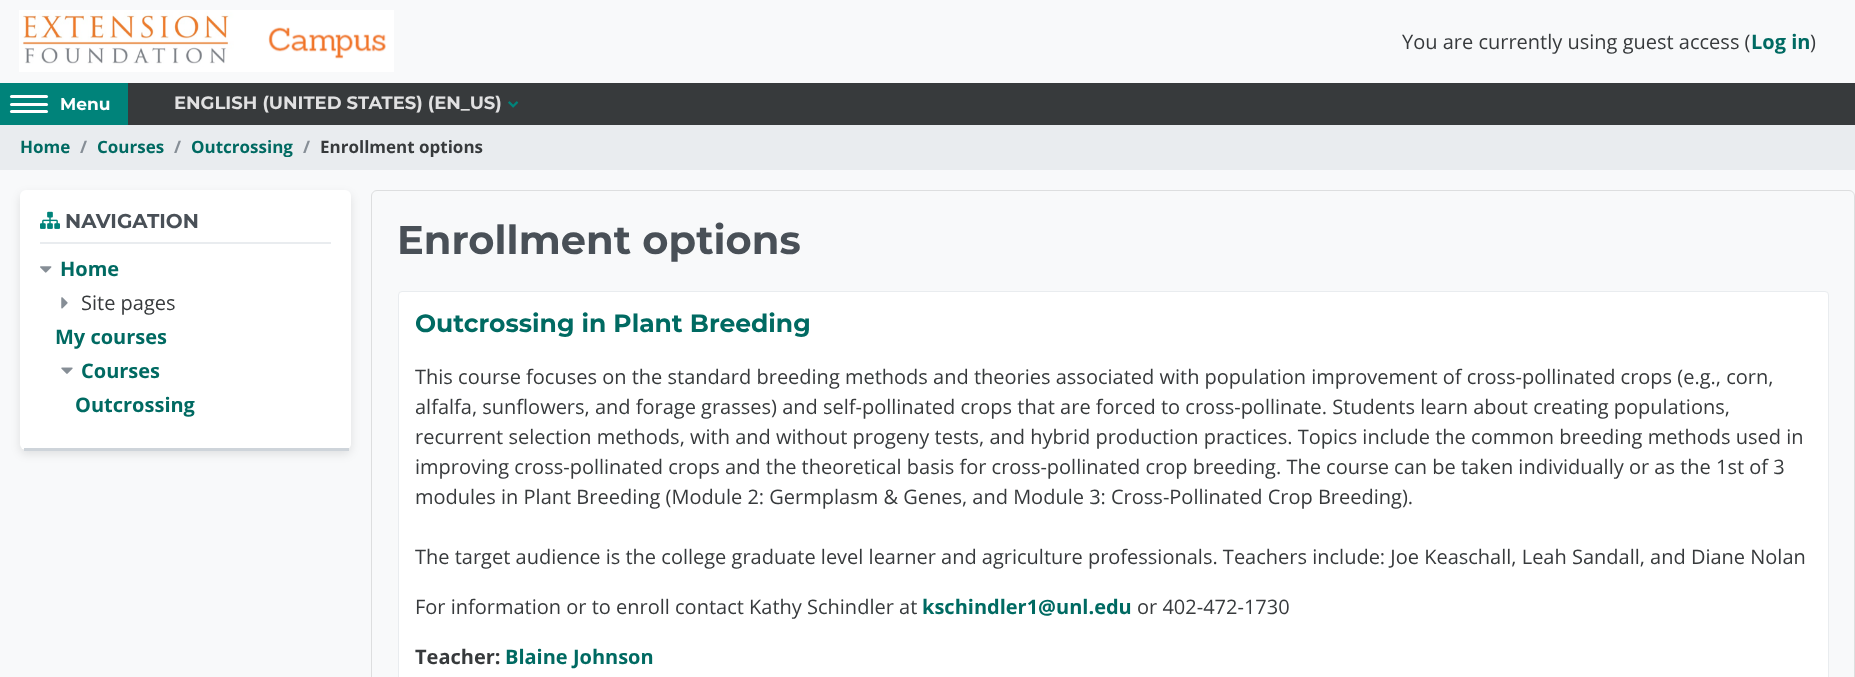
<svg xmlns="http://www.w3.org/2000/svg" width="1855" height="677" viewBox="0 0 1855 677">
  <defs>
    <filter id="blur1" x="-50%" y="-200%" width="200%" height="500%"><feGaussianBlur stdDeviation="5"/></filter>
  </defs>
  <rect width="100%" height="100%" fill="#f8f9fa"/>
  <image x="19" y="10" width="375" height="62" href="img1.png"/>
  <text x="1402" y="49" font-family="Open Sans" font-size="20" fill="#373a3c">You are currently using guest access (</text>
  <text x="1751" y="49" font-family="Open Sans" font-size="20" font-weight="bold" fill="#006a62">Log in</text>
  <text x="1810" y="49" font-family="Open Sans" font-size="20" fill="#373a3c">)</text>
  <rect x="128" y="83" width="1727" height="42" fill="#373a3c"/>
  <rect x="0" y="83" width="128" height="42" fill="#00837a"/>
  <rect x="10" y="95" width="38" height="3" rx="1.5" fill="#ffffff"/>
  <rect x="10" y="103" width="38" height="3" rx="1.5" fill="#ffffff"/>
  <rect x="10" y="110" width="38" height="3" rx="1.5" fill="#ffffff"/>
  <text x="60" y="110" font-family="Montserrat" font-size="17" font-weight="bold" fill="#ffffff">Menu</text>
  <text x="174" y="109" font-family="Montserrat" font-size="18" font-weight="bold" fill="#e1e1e2">ENGLISH (UNITED STATES) (EN_US)</text>
  <image x="508" y="101" width="11" height="7" href="img2.png"/>
  <rect x="0" y="125" width="1855" height="45" fill="#e9ecef"/>
  <text x="20" y="153" font-family="Open Sans" font-size="17" font-weight="bold" fill="#006a62">Home</text>
  <text x="80" y="153" font-family="Open Sans" font-size="17" font-weight="bold" fill="#868e96">/</text>
  <text x="97" y="153" font-family="Open Sans" font-size="17" font-weight="bold" fill="#006a62">Courses</text>
  <text x="174" y="153" font-family="Open Sans" font-size="17" font-weight="bold" fill="#868e96">/</text>
  <text x="191" y="153" font-family="Open Sans" font-size="17" font-weight="bold" fill="#006a62">Outcrossing</text>
  <text x="303" y="153" font-family="Open Sans" font-size="17" font-weight="bold" fill="#868e96">/</text>
  <text x="320" y="153" font-family="Open Sans" font-size="17" font-weight="bold" fill="#373a3c">Enrollment options</text>
  <rect x="20" y="194" width="331" height="260" rx="6" fill="#000000" fill-opacity="0.1" filter="url(#blur1)"/>
  <rect x="20" y="190" width="331" height="260" rx="6" fill="#ffffff"/>
  <rect x="24" y="448" width="325" height="3" fill="#ced4da"/>
  <rect x="40" y="242" width="291" height="2" fill="#e9ecef"/>
  <image x="40" y="211" width="20" height="18" href="img3.png"/>
  <text x="65" y="228" font-family="Montserrat" font-size="20" font-weight="bold" fill="#495057">NAVIGATION</text>
  <image x="40" y="266" width="12" height="7" href="img4.png"/>
  <text x="60" y="276" font-family="Open Sans" font-size="20" font-weight="bold" fill="#006a62">Home</text>
  <image x="61" y="297" width="7" height="12" href="img5.png"/>
  <text x="81" y="310" font-family="Open Sans" font-size="20" fill="#373a3c">Site pages</text>
  <text x="55" y="344" font-family="Open Sans" font-size="20" font-weight="bold" fill="#006a62">My courses</text>
  <image x="61" y="367" width="12" height="7" href="img6.png"/>
  <text x="81" y="378" font-family="Open Sans" font-size="20" font-weight="bold" fill="#006a62">Courses</text>
  <text x="75" y="412" font-family="Open Sans" font-size="20" font-weight="bold" fill="#006a62">Outcrossing</text>
  <rect x="371.5" y="190.5" width="1483" height="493" rx="5.5" fill="none" stroke="#dddedf"/>
  <text x="397" y="254" font-family="Montserrat" font-size="40" font-weight="bold" fill="#495057">Enrollment options</text>
  <rect x="398.5" y="291.5" width="1430" height="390" rx="3.5" fill="#ffffff" stroke="#e9ecef"/>
  <text x="415" y="332" font-family="Montserrat" font-size="25" font-weight="bold" fill="#006a62">Outcrossing in Plant Breeding</text>
  <text x="415" y="384" font-family="Open Sans" font-size="20" fill="#373a3c">This course focuses on the standard breeding methods and theories associated with population improvement of cross-pollinated crops (e.g., corn,</text>
  <text x="415" y="414" font-family="Open Sans" font-size="20" fill="#373a3c">alfalfa, sunflowers, and forage grasses) and self-pollinated crops that are forced to cross-pollinate. Students learn about creating populations,</text>
  <text x="415" y="444" font-family="Open Sans" font-size="20" fill="#373a3c">recurrent selection methods, with and without progeny tests, and hybrid production practices. Topics include the common breeding methods used in</text>
  <text x="415" y="474" font-family="Open Sans" font-size="20" fill="#373a3c">improving cross-pollinated crops and the theoretical basis for cross-pollinated crop breeding. The course can be taken individually or as the 1st of 3</text>
  <text x="415" y="504" font-family="Open Sans" font-size="20" fill="#373a3c">modules in Plant Breeding (Module 2: Germplasm &amp; Genes, and Module 3: Cross-Pollinated Crop Breeding).</text>
  <text x="415" y="564" font-family="Open Sans" font-size="20" fill="#373a3c">The target audience is the college graduate level learner and agriculture professionals. Teachers include: Joe Keaschall, Leah Sandall, and Diane Nolan</text>
  <text x="415" y="614" font-family="Open Sans" font-size="20" fill="#373a3c">For information or to enroll contact Kathy Schindler at</text>
  <text x="922" y="614" font-family="Open Sans" font-size="20" font-weight="bold" fill="#006a62">kschindler1@unl.edu</text>
  <text x="1137" y="614" font-family="Open Sans" font-size="20" fill="#373a3c">or 402-472-1730</text>
  <text x="415" y="664" font-family="Open Sans" font-size="20" font-weight="bold" fill="#373a3c">Teacher:</text>
  <text x="505" y="664" font-family="Open Sans" font-size="20" font-weight="bold" fill="#006a62">Blaine Johnson</text>
</svg>
